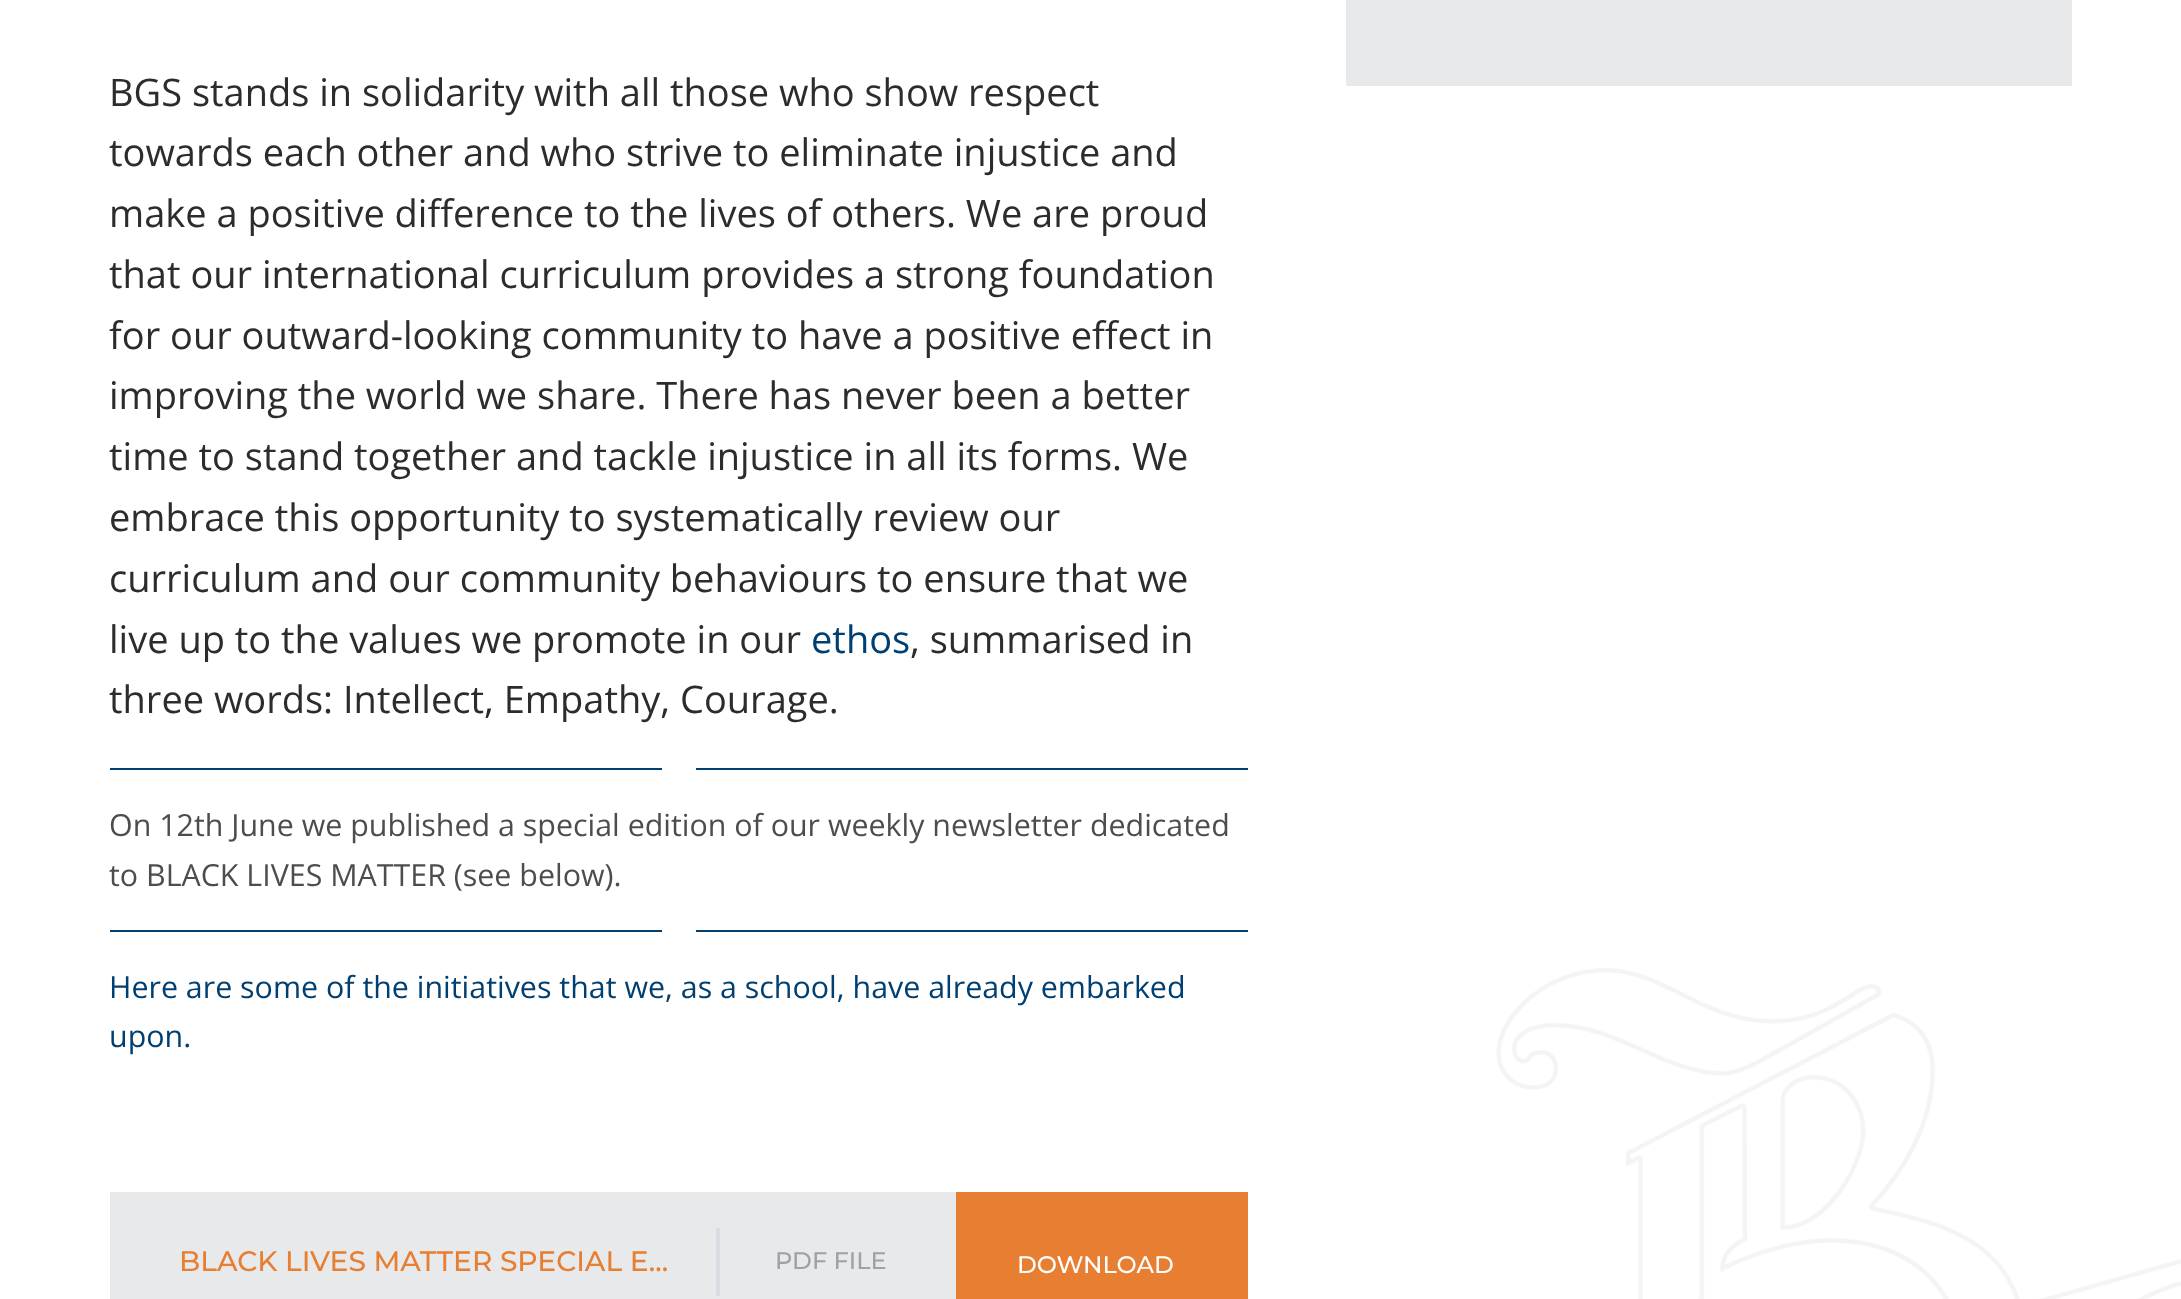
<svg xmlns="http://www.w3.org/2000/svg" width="2181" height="1299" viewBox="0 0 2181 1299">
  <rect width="100%" height="100%" fill="#ffffff"/>
  <image x="1496" y="968" width="685" height="331" href="img1.png"/>
  <rect x="1346" y="0" width="726" height="86" fill="#e7e9ea"/>
  <text x="109" y="106" font-family="Open Sans" font-size="38" fill="#2c2c2c">BGS stands in solidarity with all those who show respect</text>
  <text x="109" y="166" font-family="Open Sans" font-size="38" fill="#2c2c2c">towards each other and who strive to eliminate injustice and</text>
  <text x="109" y="227" font-family="Open Sans" font-size="38" fill="#2c2c2c">make a positive difference to the lives of others. We are proud</text>
  <text x="109" y="288" font-family="Open Sans" font-size="38" fill="#2c2c2c">that our international curriculum provides a strong foundation</text>
  <text x="109" y="349" font-family="Open Sans" font-size="38" fill="#2c2c2c">for our outward-looking community to have a positive effect in</text>
  <text x="109" y="409" font-family="Open Sans" font-size="38" fill="#2c2c2c">improving the world we share. There has never been a better</text>
  <text x="109" y="470" font-family="Open Sans" font-size="38" fill="#2c2c2c">time to stand together and tackle injustice in all its forms. We</text>
  <text x="109" y="531" font-family="Open Sans" font-size="38" fill="#2c2c2c">embrace this opportunity to systematically review our</text>
  <text x="109" y="592" font-family="Open Sans" font-size="38" fill="#2c2c2c">curriculum and our community behaviours to ensure that we</text>
  <text x="109" y="653" font-family="Open Sans" font-size="38" fill="#2c2c2c">live up to the values we promote in our</text>
  <text x="811" y="653" font-family="Open Sans" font-size="38" fill="#003f72">ethos</text>
  <text x="910" y="653" font-family="Open Sans" font-size="38" fill="#2c2c2c">, summarised in</text>
  <text x="109" y="713" font-family="Open Sans" font-size="38" fill="#2c2c2c">three words: Intellect, Empathy, Courage.</text>
  <rect x="110" y="768" width="1138" height="2" fill="#003f72"/>
  <rect x="662" y="768" width="34" height="2" fill="#ffffff"/>
  <text x="109" y="836" font-family="Open Sans" font-size="30.4" fill="#4d4d4d">On 12th June we published a special edition of our weekly newsletter dedicated</text>
  <text x="109" y="886" font-family="Open Sans" font-size="30.4" fill="#4d4d4d">to BLACK LIVES MATTER (see below).</text>
  <rect x="110" y="930" width="1138" height="2" fill="#003f72"/>
  <rect x="662" y="930" width="34" height="2" fill="#ffffff"/>
  <text x="109" y="998" font-family="Open Sans" font-size="30.4" fill="#003f72">Here are some of the initiatives that we, as a school, have already embarked</text>
  <text x="109" y="1047" font-family="Open Sans" font-size="30.4" fill="#003f72">upon.</text>
  <rect x="110" y="1192" width="846" height="107" fill="#e7e9ea"/>
  <rect x="716" y="1228" width="4" height="68" fill="#d7dde2"/>
  <text x="179" y="1271" font-family="Montserrat" font-size="28.1" font-weight="500" fill="#e77e31">BLACK LIVES MATTER SPECIAL E…</text>
  <text x="775" y="1269" font-family="Montserrat" font-size="24" font-weight="500" fill="#9fa1a2">PDF FILE</text>
  <rect x="956" y="1192" width="292" height="107" fill="#e77e31"/>
  <text x="1017" y="1273" font-family="Montserrat" font-size="24" font-weight="500" fill="#ffffff">DOWNLOAD</text>
</svg>
